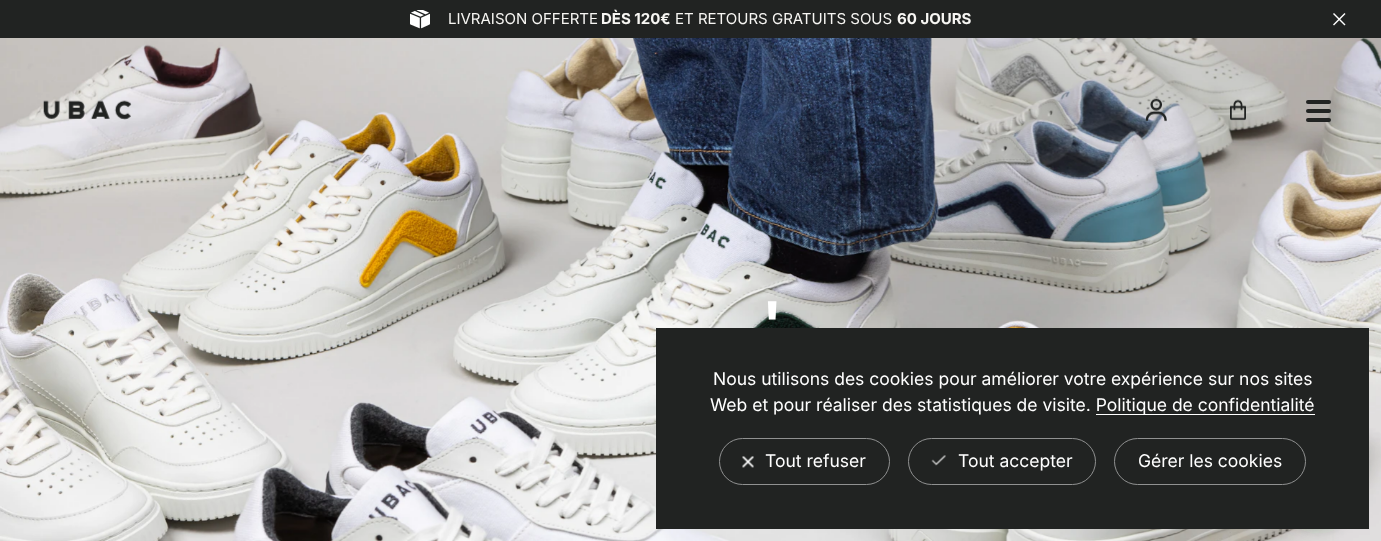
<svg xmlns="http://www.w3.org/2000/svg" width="1381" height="541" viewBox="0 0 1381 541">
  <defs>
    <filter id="blur1" x="-50%" y="-200%" width="200%" height="500%"><feGaussianBlur stdDeviation="4.5"/></filter>
  </defs>
  <rect width="100%" height="100%" fill="#ffffff"/>
  <rect x="0" y="0" width="1381" height="38" fill="#212322"/>
  <image x="410" y="10" width="20" height="19" href="img1.png"/>
  <text x="448" y="24" font-family="Inter" font-size="15" fill="#f7f6f3">LIVRAISON OFFERTE</text>
  <text x="601" y="24" font-family="Inter" font-size="15" font-weight="bold" fill="#f7f6f3">DÈS 120€</text>
  <text x="675" y="24" font-family="Inter" font-size="15" fill="#f7f6f3">ET RETOURS GRATUITS SOUS</text>
  <text x="897" y="24" font-family="Inter" font-size="15" font-weight="bold" fill="#f7f6f3">60 JOURS</text>
  <path d="M1344.5 13L1345.5 14L1334 25.5L1333 24.5Z" fill="#ffffff"/>
  <path d="M1334 13L1345.5 24.5L1344.5 25.5L1333 14Z" fill="#ffffff"/>
  <image x="0" y="38" width="1381" height="503" href="img2.png"/>
  <text x="762" y="345" font-family="Inter" font-size="60" font-weight="bold" fill="#ffffff">'</text>
  <image x="43" y="100" width="89" height="20" href="img3.png"/>
  <image x="1145" y="98" width="22" height="24" href="img4.png"/>
  <image x="1230" y="99" width="16" height="22" href="img5.png"/>
  <rect x="1306" y="100" width="25" height="4" rx="2" fill="#212322"/>
  <rect x="1306" y="109" width="25" height="4" rx="2" fill="#212322"/>
  <rect x="1306" y="118" width="25" height="4" rx="2" fill="#212322"/>
  <rect x="1281" y="459" width="75" height="75" rx="37.5" fill="#212322" fill-opacity="0.1" filter="url(#blur1)"/>
  <rect x="656" y="328" width="713" height="201" fill="#212322"/>
  <text x="713" y="385" font-family="Inter" font-size="17.5" fill="#ffffff">Nous utilisons des cookies pour améliorer votre expérience sur nos sites</text>
  <text x="710" y="411" font-family="Inter" font-size="17.5" fill="#ffffff">Web et pour réaliser des statistiques de visite. Politique de confidentialité</text>
  <rect x="1096" y="414" width="219" height="1" fill="#ffffff"/>
  <rect x="719.5" y="438.5" width="170" height="46" rx="23" fill="none" stroke="#909191"/>
  <image x="742" y="456" width="12" height="12" href="img6.png"/>
  <text x="765" y="467" font-family="Inter" font-size="17.5" fill="#ffffff">Tout refuser</text>
  <rect x="908.5" y="438.5" width="187" height="46" rx="23" fill="none" stroke="#909191"/>
  <image x="931" y="455" width="15" height="11" href="img7.png"/>
  <text x="958" y="467" font-family="Inter" font-size="17.5" fill="#ffffff">Tout accepter</text>
  <rect x="1114.5" y="438.5" width="191" height="46" rx="23" fill="none" stroke="#909191"/>
  <text x="1138" y="467" font-family="Inter" font-size="17.5" fill="#ffffff">Gérer les cookies</text>
</svg>
